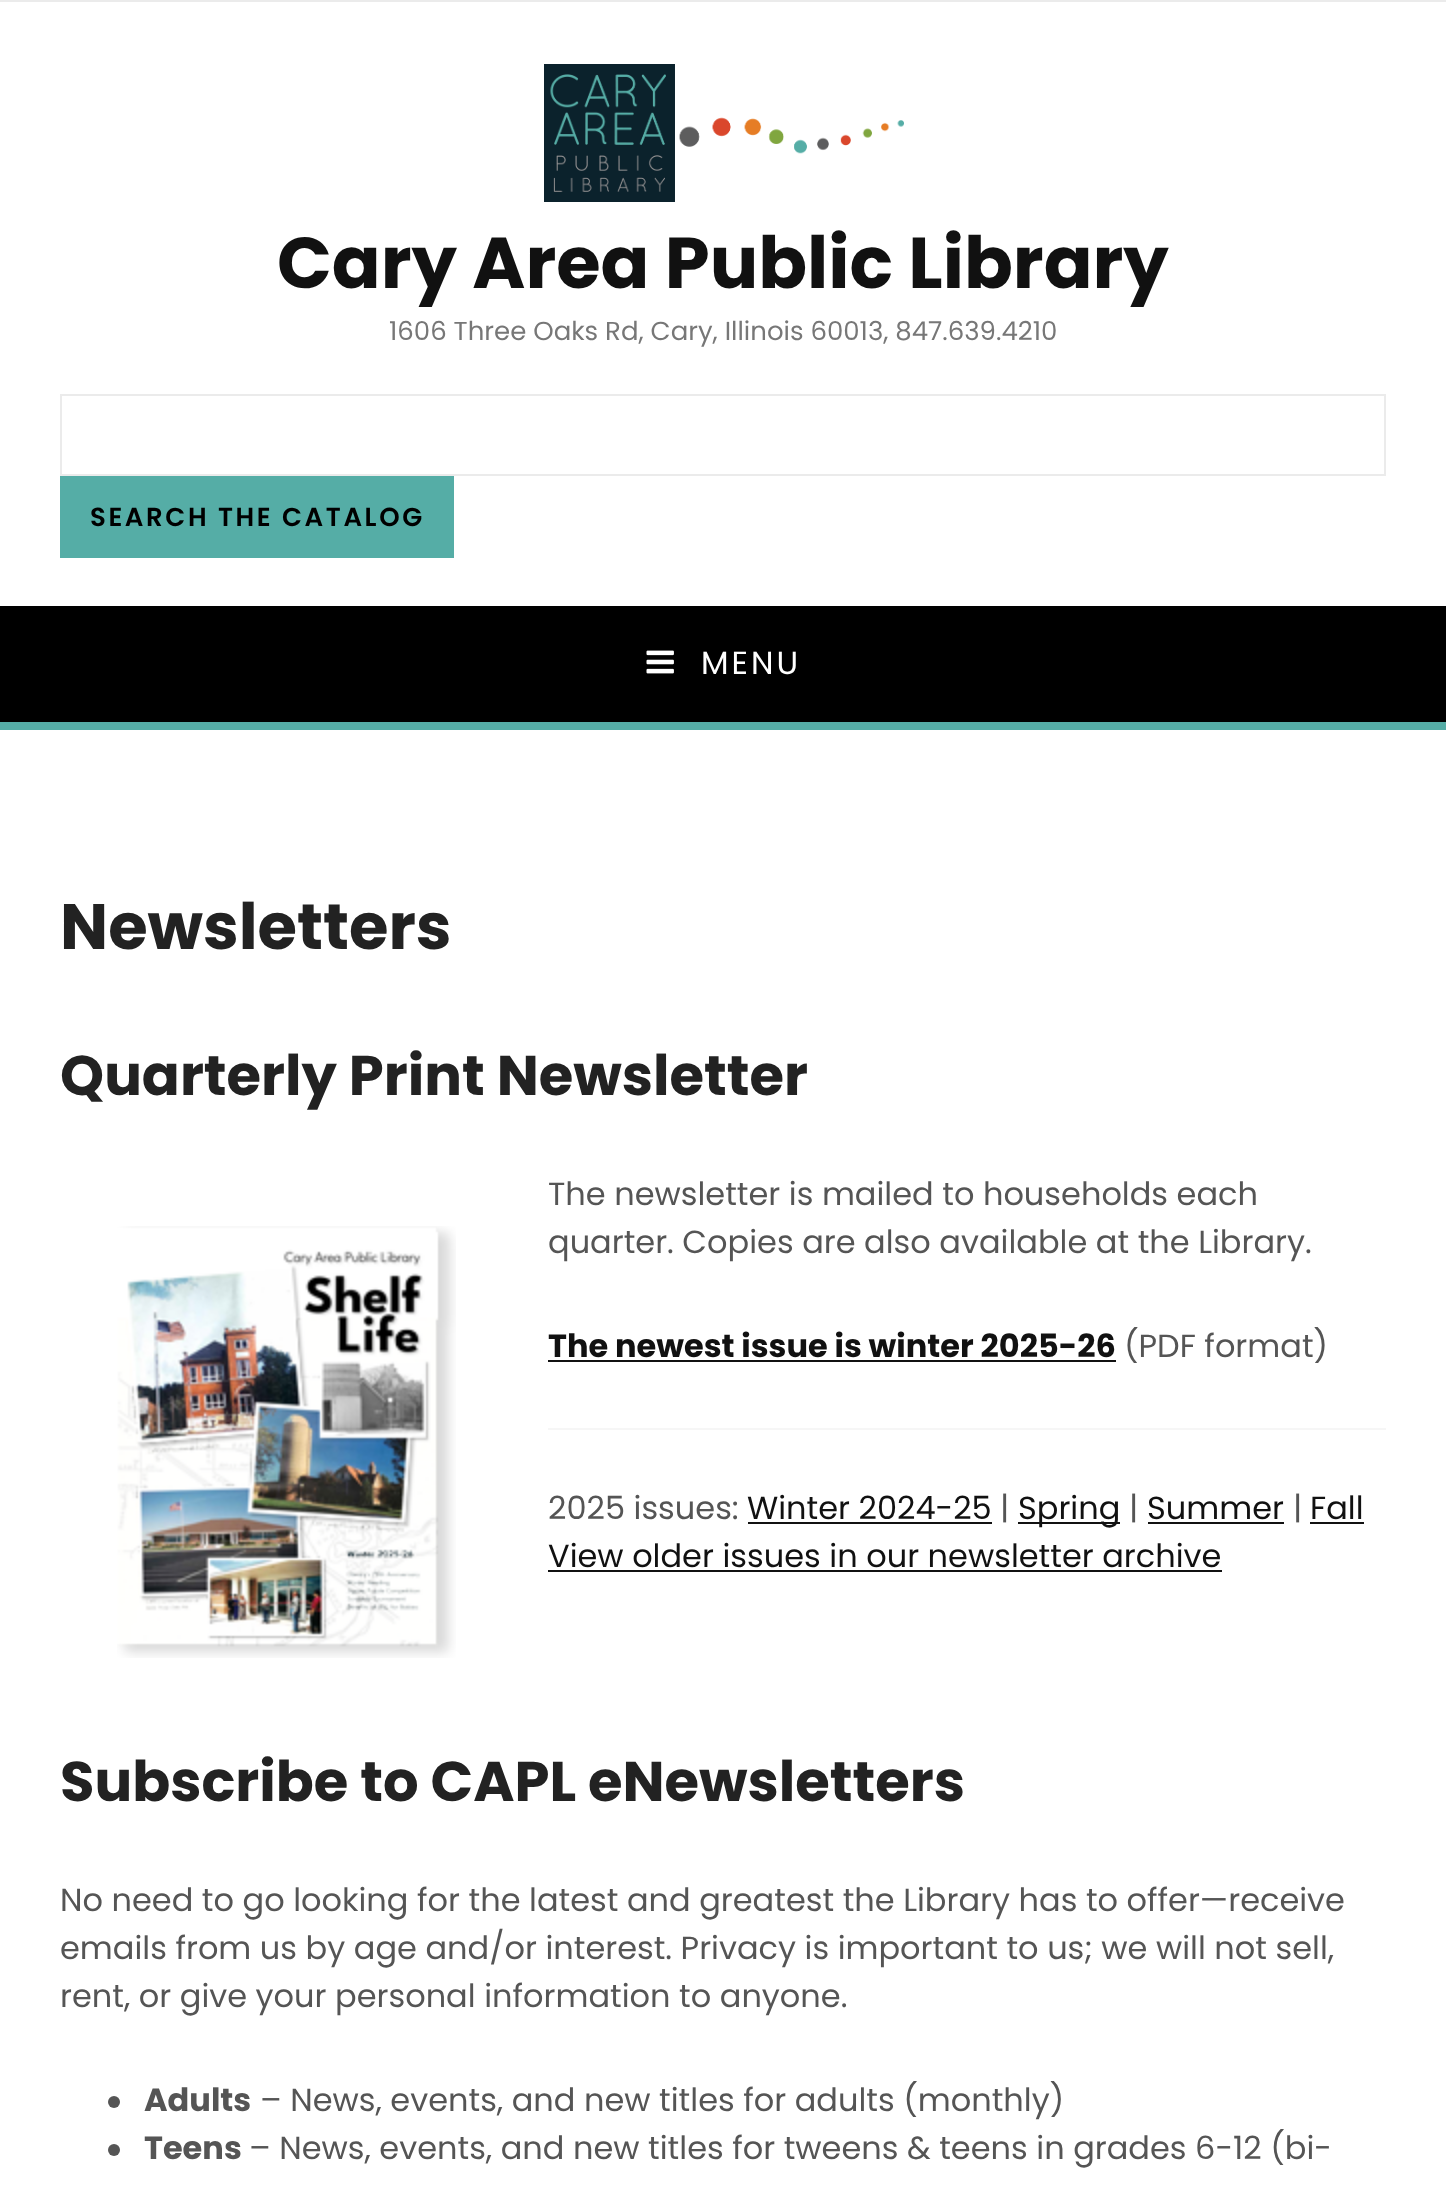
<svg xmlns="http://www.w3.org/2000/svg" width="1446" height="2191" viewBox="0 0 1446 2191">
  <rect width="100%" height="100%" fill="#ebebeb"/>
  <rect x="0" y="2" width="1446" height="604" fill="#ffffff"/>
  <image x="544" y="64" width="360" height="138" href="img1.png"/>
  <text x="277" y="288" font-family="Poppins" font-size="72" font-weight="bold" fill="#111111">Cary Area Public Library</text>
  <text x="389" y="340" font-family="Poppins" font-size="26" fill="#777777">1606 Three Oaks Rd, Cary, Illinois 60013, 847.639.4210</text>
  <rect x="61" y="395" width="1324" height="80" fill="none" stroke="#ebebeb" stroke-width="2"/>
  <rect x="60" y="476" width="394" height="82" fill="#55ada6"/>
  <text x="90" y="526" font-family="Poppins" font-size="26" font-weight="600" letter-spacing="2.6" fill="#000000">SEARCH THE CATALOG</text>
  <rect x="0" y="606" width="1446" height="116" fill="#000000"/>
  <rect x="0" y="722" width="1446" height="8" fill="#55ada6"/>
  <image x="646" y="650" width="28" height="24" href="img2.png"/>
  <text x="701" y="674" font-family="Poppins" font-size="32" letter-spacing="3" fill="#ffffff">MENU</text>
  <rect x="0" y="730" width="1446" height="1461" fill="#ffffff"/>
  <text x="60" y="949" font-family="Poppins" font-size="64" font-weight="bold" fill="#222222">Newsletters</text>
  <text x="60" y="1095" font-family="Poppins" font-size="56" font-weight="bold" fill="#222222">Quarterly Print Newsletter</text>
  <text x="548" y="1205" font-family="Poppins" font-size="32" fill="#555555">The newsletter is mailed to households each</text>
  <image x="117" y="1226" width="339" height="432" href="img3.png"/>
  <text x="548" y="1253" font-family="Poppins" font-size="32" fill="#555555">quarter. Copies are also available at the Library.</text>
  <text x="548" y="1357" font-family="Poppins" font-size="32" font-weight="bold" fill="#111111">The newest issue is winter 2025-26</text>
  <rect x="548" y="1360" width="568" height="2" fill="#111111"/>
  <text x="1124" y="1357" font-family="Poppins" font-size="32" fill="#555555">(PDF format)</text>
  <rect x="548" y="1428" width="838" height="2" fill="#f6f6f6"/>
  <text x="548" y="1519" font-family="Poppins" font-size="32" fill="#555555">2025 issues:</text>
  <text x="747" y="1519" font-family="Poppins" font-size="32" fill="#111111">Winter 2024-25</text>
  <rect x="748" y="1522" width="244" height="2" fill="#111111"/>
  <text x="1000" y="1519" font-family="Poppins" font-size="32" fill="#555555">|</text>
  <rect x="1018" y="1522" width="102" height="2" fill="#111111"/>
  <text x="1018" y="1519" font-family="Poppins" font-size="32" fill="#111111">Spring</text>
  <text x="1129" y="1519" font-family="Poppins" font-size="32" fill="#555555">|</text>
  <text x="1147" y="1519" font-family="Poppins" font-size="32" fill="#111111">Summer</text>
  <rect x="1148" y="1522" width="136" height="2" fill="#111111"/>
  <text x="1293" y="1519" font-family="Poppins" font-size="32" fill="#555555">|</text>
  <text x="1310" y="1519" font-family="Poppins" font-size="32" fill="#111111">Fall</text>
  <rect x="1310" y="1522" width="54" height="2" fill="#111111"/>
  <text x="548" y="1567" font-family="Poppins" font-size="32" fill="#111111">View older issues in our newsletter archive</text>
  <rect x="548" y="1570" width="674" height="2" fill="#111111"/>
  <text x="60" y="1801" font-family="Poppins" font-size="56" font-weight="bold" fill="#222222">Subscribe to CAPL eNewsletters</text>
  <text x="60" y="1911" font-family="Poppins" font-size="32" fill="#555555">No need to go looking for the latest and greatest the Library has to offer—receive</text>
  <text x="60" y="1959" font-family="Poppins" font-size="32" fill="#555555">emails from us by age and/or interest. Privacy is important to us; we will not sell,</text>
  <text x="60" y="2007" font-family="Poppins" font-size="32" fill="#555555">rent, or give your personal information to anyone.</text>
  <circle cx="114" cy="2102" r="6" fill="#555555"/>
  <text x="144" y="2111" font-family="Poppins" font-size="32" font-weight="bold" fill="#555555">Adults</text>
  <text x="260" y="2111" font-family="Poppins" font-size="32" fill="#555555">– News, events, and new titles for adults (monthly)</text>
  <circle cx="114" cy="2150" r="6" fill="#555555"/>
  <text x="144" y="2159" font-family="Poppins" font-size="32" font-weight="bold" fill="#555555">Teens</text>
  <text x="249" y="2159" font-family="Poppins" font-size="32" fill="#555555">– News, events, and new titles for tweens &amp; teens in grades 6-12 (bi-</text>
</svg>
